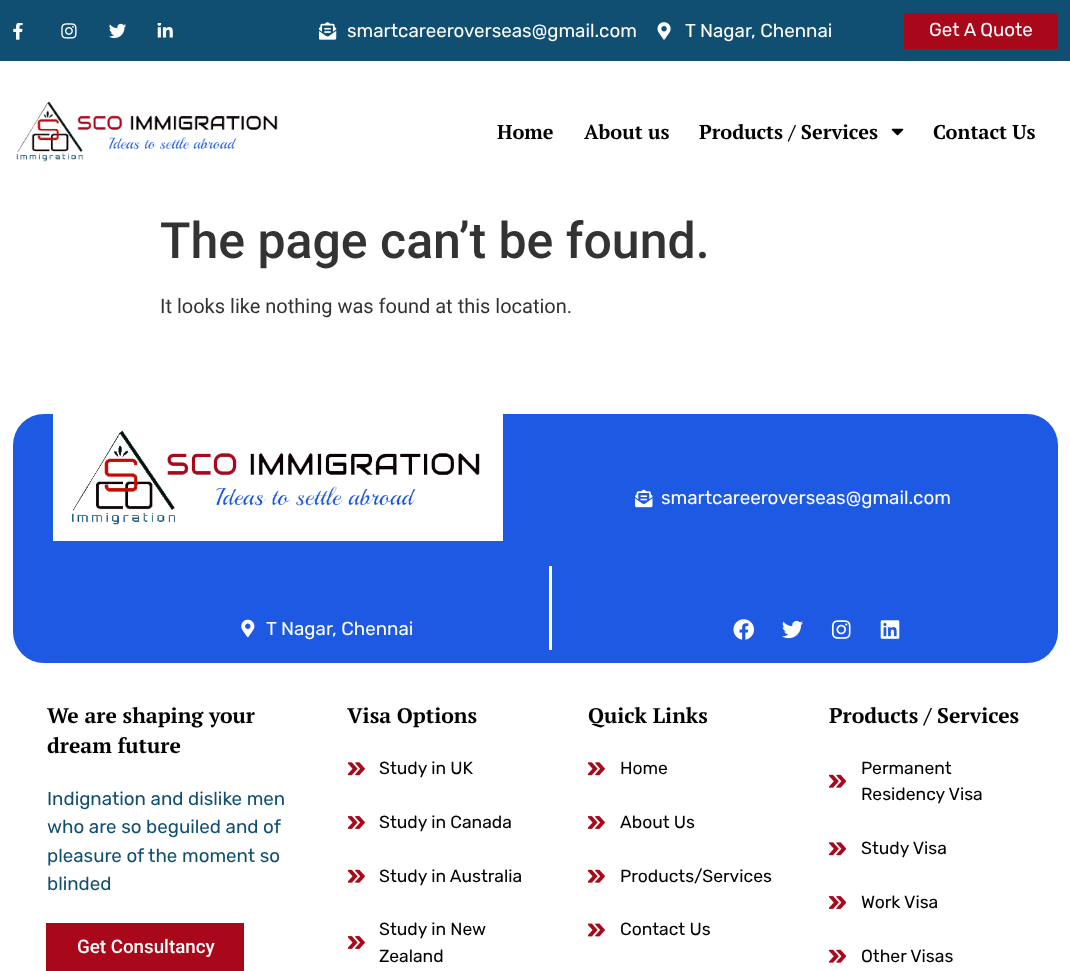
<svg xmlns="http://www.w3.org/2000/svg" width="1070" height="971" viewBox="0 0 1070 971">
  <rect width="100%" height="100%" fill="#ffffff"/>
  <rect x="0" y="0" width="1070" height="61" fill="#104f72"/>
  <image x="13" y="23" width="10" height="17" href="img1.png"/>
  <image x="61" y="23" width="16" height="16" href="img2.png"/>
  <image x="109" y="23" width="18" height="16" href="img3.png"/>
  <image x="157" y="23" width="16" height="15" href="img4.png"/>
  <image x="319" y="22" width="18" height="18" href="img5.png"/>
  <text x="347" y="37" font-family="Rubik" font-size="18.75" fill="#ffffff">smartcareeroverseas@gmail.com</text>
  <image x="657" y="22" width="14" height="18" href="img6.png"/>
  <text x="685" y="37" font-family="Rubik" font-size="18.75" fill="#ffffff">T Nagar, Chennai</text>
  <rect x="904" y="13" width="154" height="36" fill="#a8081a"/>
  <text x="929" y="36" font-family="Rubik" font-size="18.75" fill="#ffffff">Get A Quote</text>
  <image x="16" y="101" width="262" height="61" href="img7.png"/>
  <text x="497" y="139" font-family="PT Serif" font-size="20" font-weight="bold" fill="#000000">Home</text>
  <text x="584" y="139" font-family="PT Serif" font-size="20" font-weight="bold" fill="#000000">About us</text>
  <text x="699" y="139" font-family="PT Serif" font-size="20" font-weight="bold" fill="#000000">Products / Services</text>
  <image x="891" y="128" width="13" height="8" href="img8.png"/>
  <text x="933" y="139" font-family="PT Serif" font-size="20" font-weight="bold" fill="#000000">Contact Us</text>
  <text x="160" y="258" font-family="Roboto" font-size="50" font-weight="500" fill="#333333">The page can’t be found.</text>
  <text x="160" y="313" font-family="Roboto" font-size="20" fill="#333333">It looks like nothing was found at this location.</text>
  <rect x="13" y="414" width="1045" height="249" rx="31" fill="#1d59e2"/>
  <rect x="53" y="414" width="450" height="127" fill="#ffffff"/>
  <image x="72" y="430" width="408" height="95" href="img9.png"/>
  <image x="635" y="489" width="18" height="19" href="img10.png"/>
  <text x="661" y="504" font-family="Rubik" font-size="18.75" fill="#ffffff">smartcareeroverseas@gmail.com</text>
  <rect x="549" y="566" width="3" height="84" fill="#ffffff"/>
  <image x="241" y="619" width="14" height="19" href="img11.png"/>
  <text x="266" y="635" font-family="Rubik" font-size="18.75" fill="#ffffff">T Nagar, Chennai</text>
  <image x="733" y="619" width="21" height="21" href="img12.png"/>
  <image x="782" y="620" width="21" height="19" href="img13.png"/>
  <image x="831" y="620" width="20" height="19" href="img14.png"/>
  <image x="880" y="620" width="20" height="19" href="img15.png"/>
  <text x="47" y="723" font-family="PT Serif" font-size="21.25" font-weight="bold" fill="#000000">We are shaping your</text>
  <text x="47" y="753" font-family="PT Serif" font-size="21.25" font-weight="bold" fill="#000000">dream future</text>
  <text x="47" y="805" font-family="Rubik" font-size="18.75" fill="#104f72">Indignation and dislike men</text>
  <text x="47" y="833" font-family="Rubik" font-size="18.75" fill="#104f72">who are so beguiled and of</text>
  <text x="47" y="862" font-family="Rubik" font-size="18.75" fill="#104f72">pleasure of the moment so</text>
  <text x="47" y="890" font-family="Rubik" font-size="18.75" fill="#104f72">blinded</text>
  <rect x="46" y="923" width="198" height="48" fill="#a8081a"/>
  <text x="77" y="953" font-family="Roboto" font-size="18.75" font-weight="500" fill="#ffffff">Get Consultancy</text>
  <text x="347" y="723" font-family="PT Serif" font-size="21.25" font-weight="bold" fill="#000000">Visa Options</text>
  <image x="348" y="762" width="17" height="14" href="img16.png"/>
  <text x="379" y="774" font-family="Rubik" font-size="17.5" fill="#000000">Study in UK</text>
  <image x="348" y="816" width="17" height="13" href="img17.png"/>
  <text x="379" y="828" font-family="Rubik" font-size="17.5" fill="#000000">Study in Canada</text>
  <image x="348" y="869" width="17" height="14" href="img18.png"/>
  <text x="379" y="882" font-family="Rubik" font-size="17.5" fill="#000000">Study in Australia</text>
  <image x="348" y="936" width="17" height="13" href="img17.png"/>
  <text x="379" y="935" font-family="Rubik" font-size="17.5" fill="#000000">Study in New</text>
  <text x="379" y="962" font-family="Rubik" font-size="17.5" fill="#000000">Zealand</text>
  <text x="588" y="723" font-family="PT Serif" font-size="21.25" font-weight="bold" fill="#000000">Quick Links</text>
  <image x="588" y="762" width="17" height="14" href="img16.png"/>
  <text x="620" y="774" font-family="Rubik" font-size="17.5" fill="#000000">Home</text>
  <image x="588" y="816" width="17" height="13" href="img17.png"/>
  <text x="620" y="828" font-family="Rubik" font-size="17.5" fill="#000000">About Us</text>
  <image x="588" y="869" width="17" height="14" href="img18.png"/>
  <text x="620" y="882" font-family="Rubik" font-size="17.5" fill="#000000">Products/Services</text>
  <image x="588" y="923" width="17" height="14" href="img19.png"/>
  <text x="620" y="935" font-family="Rubik" font-size="17.5" fill="#000000">Contact Us</text>
  <text x="829" y="723" font-family="PT Serif" font-size="21.25" font-weight="bold" fill="#000000">Products / Services</text>
  <image x="829" y="774" width="17" height="14" href="img20.png"/>
  <text x="861" y="774" font-family="Rubik" font-size="17.5" fill="#000000">Permanent</text>
  <text x="861" y="800" font-family="Rubik" font-size="17.5" fill="#000000">Residency Visa</text>
  <image x="829" y="842" width="17" height="14" href="img21.png"/>
  <text x="861" y="854" font-family="Rubik" font-size="17.5" fill="#000000">Study Visa</text>
  <image x="829" y="896" width="17" height="13" href="img22.png"/>
  <text x="861" y="908" font-family="Rubik" font-size="17.5" fill="#000000">Work Visa</text>
  <image x="829" y="949" width="17" height="14" href="img20.png"/>
  <text x="861" y="962" font-family="Rubik" font-size="17.5" fill="#000000">Other Visas</text>
</svg>
